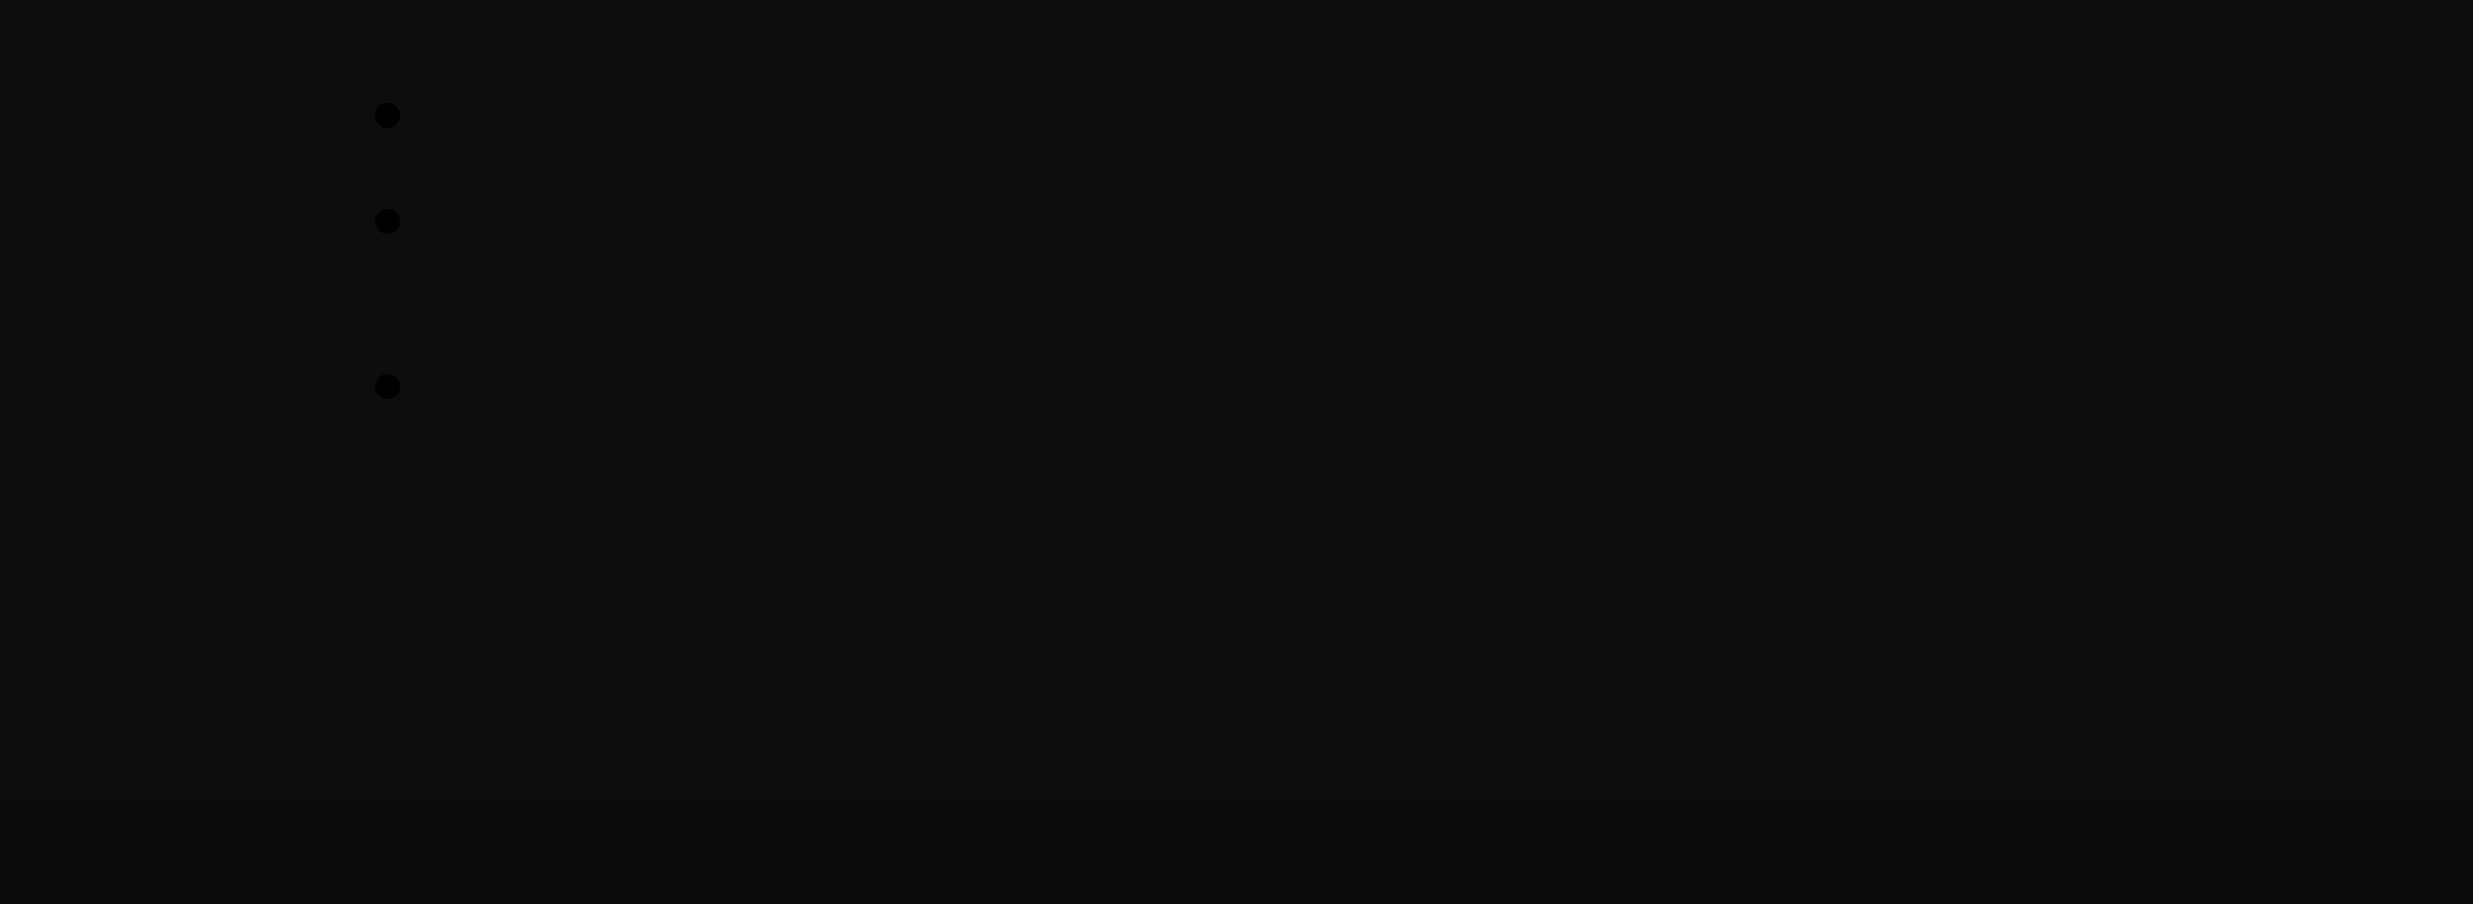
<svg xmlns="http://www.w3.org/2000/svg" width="2491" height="904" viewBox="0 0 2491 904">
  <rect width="100%" height="100%" fill="#ffffff"/>
  <rect x="0" y="0" width="2473" height="801" fill="#0d0d0d"/>
  <circle cx="387.5" cy="115.5" r="12.5" fill="#000000"/>
  <circle cx="387.5" cy="221.5" r="12.5" fill="#000000"/>
  <circle cx="387.5" cy="386.5" r="12.5" fill="#000000"/>
  <rect x="0" y="801" width="2473" height="23" fill="#0c0c0c"/>
  <rect x="0" y="824" width="2473" height="80" fill="#0d0c0b"/>
</svg>
